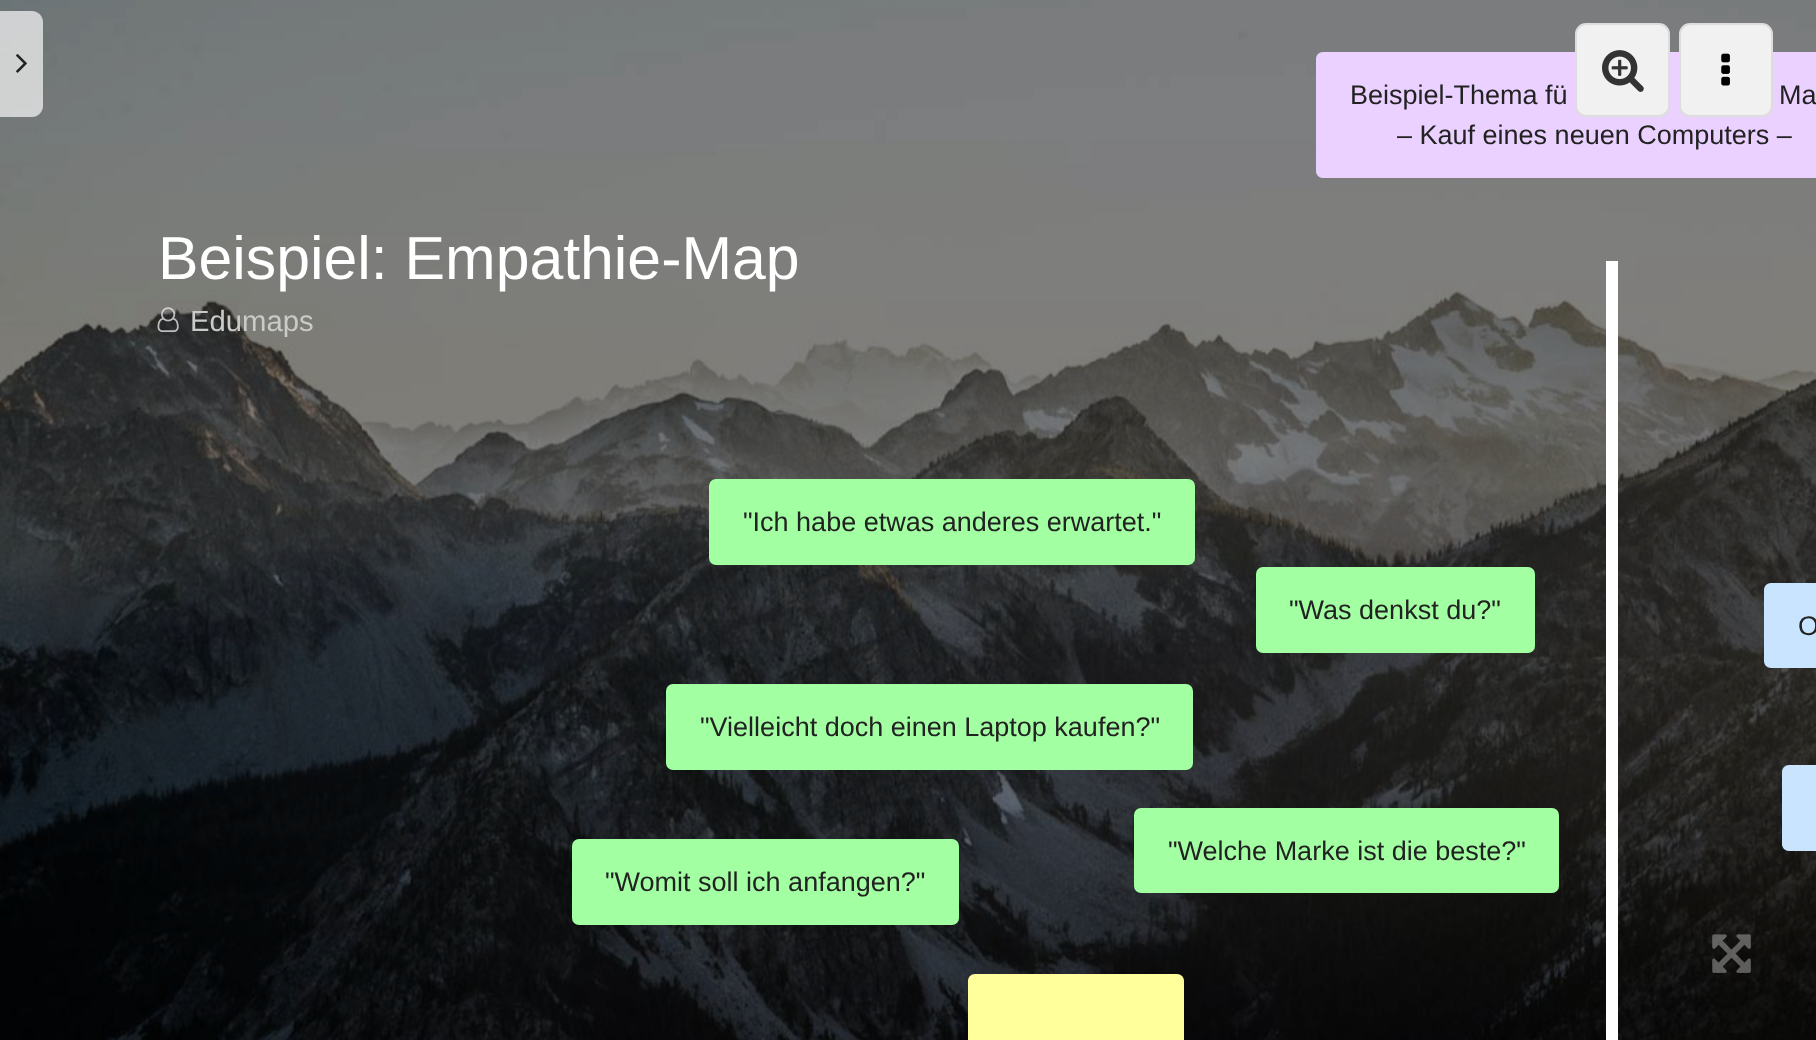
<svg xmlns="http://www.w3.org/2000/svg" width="1816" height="1040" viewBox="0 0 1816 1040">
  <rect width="100%" height="100%" fill="#ffffff"/>
  <image x="0" y="0" width="1816" height="1040" href="img1.png"/>
  <path d="M0 11H32C38 11 43 16 43 22V106C43 112 38 117 32 117H0Z" fill="#ffffff" fill-opacity="0.67"/>
  <image x="16" y="54" width="11" height="19" href="img2.png"/>
  <path d="M1323 52H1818V178H1323C1319 178 1316 175 1316 171V59C1316 55 1319 52 1323 52Z" fill="#ead1ff"/>
  <rect x="1576" y="24" width="93" height="92" rx="10" fill="#f1f1f1" stroke="#dddddd" stroke-width="2"/>
  <image x="1602" y="50" width="42" height="42" href="img3.png"/>
  <rect x="1680" y="24" width="92" height="92" rx="10" fill="#f1f1f1" stroke="#dddddd" stroke-width="2"/>
  <image x="1721" y="53" width="9" height="33" href="img4.png"/>
  <text x="158" y="279" font-family="Liberation Sans" font-size="60.75" fill="#ffffff">Beispiel: Empathie-Map</text>
  <image x="157" y="307" width="22" height="26" href="img5.png"/>
  <text x="190" y="331" font-family="Liberation Sans" font-size="29.25" fill="#cacac9">Edumaps</text>
  <text x="1350" y="104" font-family="Liberation Sans" font-size="27" fill="#222222">Beispiel-Thema fü</text>
  <text x="1779" y="104" font-family="Liberation Sans" font-size="27" fill="#222222">Ma</text>
  <text x="1397" y="144" font-family="Liberation Sans" font-size="27" fill="#222222">– Kauf eines neuen Computers –</text>
  <rect x="709" y="479" width="486" height="86" rx="7" fill="#a2ffa2"/>
  <text x="743" y="531" font-family="Liberation Sans" font-size="27" fill="#222222">"Ich habe etwas anderes erwartet."</text>
  <rect x="1606" y="261" width="12" height="779" fill="#ffffff"/>
  <rect x="1256" y="567" width="279" height="86" rx="7" fill="#a2ffa2"/>
  <text x="1289" y="619" font-family="Liberation Sans" font-size="27" fill="#222222">"Was denkst du?"</text>
  <path d="M1771 583H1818V668H1771C1767 668 1764 665 1764 661V590C1764 586 1767 583 1771 583Z" fill="#c8e4ff"/>
  <text x="1798" y="635" font-family="Liberation Sans" font-size="27" fill="#222222">O</text>
  <rect x="666" y="684" width="527" height="86" rx="7" fill="#a2ffa2"/>
  <text x="700" y="736" font-family="Liberation Sans" font-size="27" fill="#222222">"Vielleicht doch einen Laptop kaufen?"</text>
  <rect x="1134" y="808" width="425" height="85" rx="7" fill="#a2ffa2"/>
  <text x="1168" y="860" font-family="Liberation Sans" font-size="27" fill="#222222">"Welche Marke ist die beste?"</text>
  <path d="M1789 765H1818V851H1789C1785 851 1782 848 1782 844V772C1782 768 1785 765 1789 765Z" fill="#c8e4ff"/>
  <rect x="572" y="839" width="387" height="86" rx="7" fill="#a2ffa2"/>
  <text x="605" y="891" font-family="Liberation Sans" font-size="27" fill="#222222">"Womit soll ich anfangen?"</text>
  <path d="M975 974H1177C1181 974 1184 977 1184 981V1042H968V981C968 977 971 974 975 974Z" fill="#ffff9c"/>
  <image x="1712" y="934" width="39" height="39" href="img6.png"/>
</svg>
